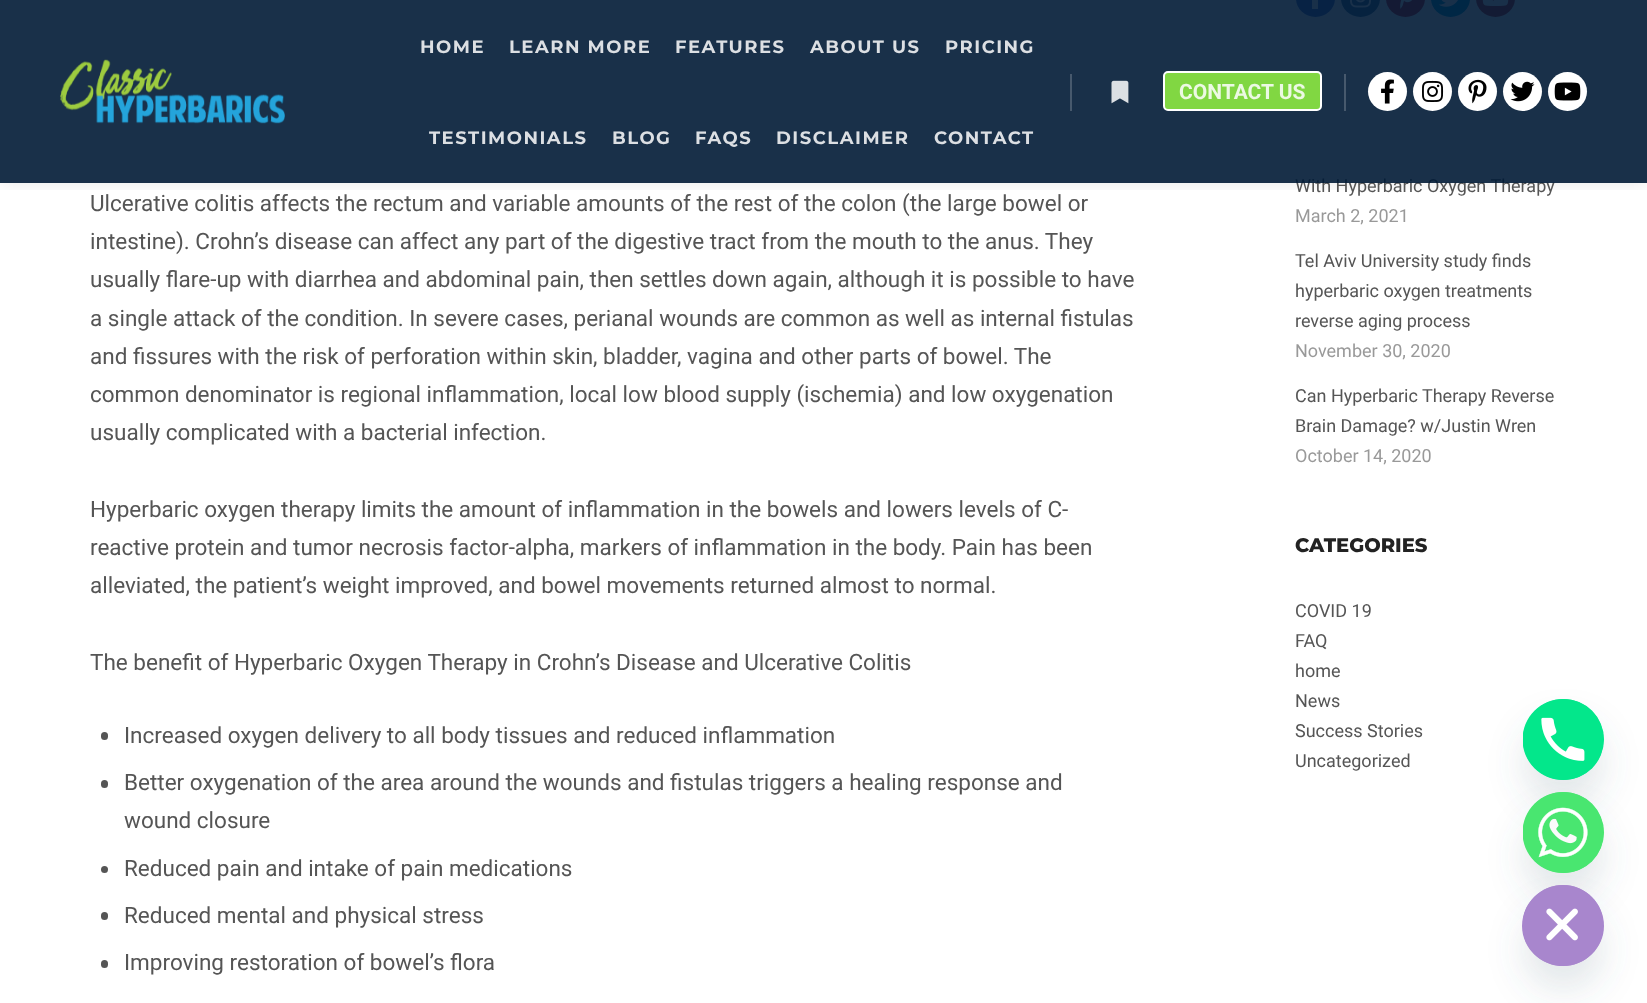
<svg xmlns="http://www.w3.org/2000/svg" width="1647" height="1003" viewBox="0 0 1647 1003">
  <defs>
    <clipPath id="clip1"><rect x="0" y="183" width="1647" height="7"/></clipPath>
    <filter id="blur1" x="-50%" y="-200%" width="200%" height="500%"><feGaussianBlur stdDeviation="9"/></filter>
    <filter id="blur2" x="-50%" y="-200%" width="200%" height="500%"><feGaussianBlur stdDeviation="18"/></filter>
  </defs>
  <rect width="100%" height="100%" fill="#ffffff"/>
  <rect x="1296" y="-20" width="39" height="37" rx="19.5" fill="#4a73c9"/>
  <rect x="1312" y="0" width="6" height="9" fill="#ffffff"/>
  <rect x="1341" y="-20" width="39" height="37" rx="19.5" fill="#3f729b"/>
  <image x="1350" y="0" width="21" height="8" href="img8.png"/>
  <rect x="1386" y="-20" width="39" height="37" rx="19.5" fill="#c8232c"/>
  <image x="1400" y="0" width="12" height="9" href="img9.png"/>
  <rect x="1431" y="-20" width="39" height="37" rx="19.5" fill="#00a0d1"/>
  <image x="1438" y="0" width="20" height="7" href="img10.png"/>
  <rect x="1476" y="-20" width="39" height="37" rx="19.5" fill="#c4302b"/>
  <image x="1482" y="0" width="27" height="6" href="img11.png"/>
  <g clip-path="url(#clip1)">
    <rect x="0" y="0" width="1647" height="183" fill="#000000" fill-opacity="0.09" filter="url(#blur1)"/>
  </g>
  <text x="1295" y="192" font-family="Roboto" font-size="18" fill="#555555">With Hyperbaric Oxygen Therapy</text>
  <rect x="0" y="0" width="1647" height="183" fill="#001935" fill-opacity="0.9"/>
  <image x="60" y="59" width="225" height="65" href="img1.png"/>
  <text x="420" y="53" font-family="Montserrat" font-size="18" font-weight="bold" letter-spacing="1.5" fill="#dcdfe3">HOME</text>
  <text x="509" y="53" font-family="Montserrat" font-size="18" font-weight="bold" letter-spacing="1.5" fill="#dcdfe3">LEARN MORE</text>
  <text x="675" y="53" font-family="Montserrat" font-size="18" font-weight="bold" letter-spacing="1.5" fill="#dcdfe3">FEATURES</text>
  <text x="810" y="53" font-family="Montserrat" font-size="18" font-weight="bold" letter-spacing="1.5" fill="#dcdfe3">ABOUT US</text>
  <text x="945" y="53" font-family="Montserrat" font-size="18" font-weight="bold" letter-spacing="1.5" fill="#dcdfe3">PRICING</text>
  <text x="429" y="144" font-family="Montserrat" font-size="18" font-weight="bold" letter-spacing="1.5" fill="#dcdfe3">TESTIMONIALS</text>
  <text x="612" y="144" font-family="Montserrat" font-size="18" font-weight="bold" letter-spacing="1.5" fill="#dcdfe3">BLOG</text>
  <text x="695" y="144" font-family="Montserrat" font-size="18" font-weight="bold" letter-spacing="1.5" fill="#dcdfe3">FAQS</text>
  <text x="776" y="144" font-family="Montserrat" font-size="18" font-weight="bold" letter-spacing="1.5" fill="#dcdfe3">DISCLAIMER</text>
  <text x="934" y="144" font-family="Montserrat" font-size="18" font-weight="bold" letter-spacing="1.5" fill="#dcdfe3">CONTACT</text>
  <rect x="1070" y="74" width="2" height="37" fill="#ffffff" fill-opacity="0.2"/>
  <image x="1111" y="80" width="18" height="24" href="img2.png"/>
  <rect x="1164" y="72" width="157" height="38" rx="4" fill="#81d742" stroke="#ffffff" stroke-width="2"/>
  <text x="1179" y="99" font-family="Roboto" font-size="21" font-weight="bold" fill="#ecf9e3">CONTACT US</text>
  <rect x="1344" y="74" width="2" height="37" fill="#ffffff" fill-opacity="0.2"/>
  <circle cx="1387.5" cy="91.5" r="19.5" fill="#ffffff"/>
  <image x="1381" y="79" width="13" height="25" href="img3.png"/>
  <circle cx="1432.5" cy="91.5" r="19.5" fill="#ffffff"/>
  <image x="1422" y="80" width="22" height="22" href="img4.png"/>
  <circle cx="1477.5" cy="91.5" r="19.5" fill="#ffffff"/>
  <image x="1468" y="79" width="19" height="25" href="img5.png"/>
  <circle cx="1522.5" cy="91.5" r="19.5" fill="#ffffff"/>
  <image x="1510" y="81" width="25" height="21" href="img6.png"/>
  <circle cx="1567.5" cy="91.5" r="19.5" fill="#ffffff"/>
  <image x="1554" y="82" width="27" height="19" href="img7.png"/>
  <text x="90" y="211" font-family="Roboto" font-size="22.5" fill="#555555">Ulcerative colitis affects the rectum and variable amounts of the rest of the colon (the large bowel or</text>
  <text x="90" y="249" font-family="Roboto" font-size="22.5" fill="#555555">intestine). Crohn’s disease can affect any part of the digestive tract from the mouth to the anus. They</text>
  <text x="90" y="287" font-family="Roboto" font-size="22.5" fill="#555555">usually flare-up with diarrhea and abdominal pain, then settles down again, although it is possible to have</text>
  <text x="90" y="326" font-family="Roboto" font-size="22.5" fill="#555555">a single attack of the condition. In severe cases, perianal wounds are common as well as internal fistulas</text>
  <text x="90" y="364" font-family="Roboto" font-size="22.5" fill="#555555">and fissures with the risk of perforation within skin, bladder, vagina and other parts of bowel. The</text>
  <text x="90" y="402" font-family="Roboto" font-size="22.5" fill="#555555">common denominator is regional inflammation, local low blood supply (ischemia) and low oxygenation</text>
  <text x="90" y="440" font-family="Roboto" font-size="22.5" fill="#555555">usually complicated with a bacterial infection.</text>
  <text x="90" y="517" font-family="Roboto" font-size="22.5" fill="#555555">Hyperbaric oxygen therapy limits the amount of inflammation in the bowels and lowers levels of C-</text>
  <text x="90" y="555" font-family="Roboto" font-size="22.5" fill="#555555">reactive protein and tumor necrosis factor-alpha, markers of inflammation in the body. Pain has been</text>
  <text x="90" y="593" font-family="Roboto" font-size="22.5" fill="#555555">alleviated, the patient’s weight improved, and bowel movements returned almost to normal.</text>
  <text x="90" y="670" font-family="Roboto" font-size="22.5" fill="#555555">The benefit of Hyperbaric Oxygen Therapy in Crohn’s Disease and Ulcerative Colitis</text>
  <rect x="101" y="732" width="7" height="8" rx="3.5" fill="#555555"/>
  <text x="124" y="743" font-family="Roboto" font-size="22.5" fill="#555555">Increased oxygen delivery to all body tissues and reduced inflammation</text>
  <rect x="101" y="780" width="7" height="8" rx="3.5" fill="#555555"/>
  <text x="124" y="790" font-family="Roboto" font-size="22.5" fill="#555555">Better oxygenation of the area around the wounds and fistulas triggers a healing response and</text>
  <text x="124" y="828" font-family="Roboto" font-size="22.5" fill="#555555">wound closure</text>
  <circle cx="104.5" cy="869.5" r="3.5" fill="#555555"/>
  <text x="124" y="876" font-family="Roboto" font-size="22.5" fill="#555555">Reduced pain and intake of pain medications</text>
  <rect x="101" y="912" width="7" height="8" rx="3.5" fill="#555555"/>
  <text x="124" y="923" font-family="Roboto" font-size="22.5" fill="#555555">Reduced mental and physical stress</text>
  <rect x="101" y="960" width="7" height="8" rx="3.5" fill="#555555"/>
  <text x="124" y="970" font-family="Roboto" font-size="22.5" fill="#555555">Improving restoration of bowel’s flora</text>
  <text x="1295" y="222" font-family="Roboto" font-size="18" fill="#999999">March 2, 2021</text>
  <text x="1295" y="267" font-family="Roboto" font-size="18" fill="#555555">Tel Aviv University study finds</text>
  <text x="1295" y="297" font-family="Roboto" font-size="18" fill="#555555">hyperbaric oxygen treatments</text>
  <text x="1295" y="327" font-family="Roboto" font-size="18" fill="#555555">reverse aging process</text>
  <text x="1295" y="357" font-family="Roboto" font-size="18" fill="#999999">November 30, 2020</text>
  <text x="1295" y="402" font-family="Roboto" font-size="18" fill="#555555">Can Hyperbaric Therapy Reverse</text>
  <text x="1295" y="432" font-family="Roboto" font-size="18" fill="#555555">Brain Damage? w/Justin Wren</text>
  <text x="1295" y="462" font-family="Roboto" font-size="18" fill="#999999">October 14, 2020</text>
  <text x="1295" y="552" font-family="Montserrat" font-size="19.5" font-weight="800" fill="#222222">CATEGORIES</text>
  <text x="1295" y="617" font-family="Roboto" font-size="18" fill="#555555">COVID 19</text>
  <text x="1295" y="647" font-family="Roboto" font-size="18" fill="#555555">FAQ</text>
  <text x="1295" y="677" font-family="Roboto" font-size="18" fill="#555555">home</text>
  <text x="1295" y="707" font-family="Roboto" font-size="18" fill="#555555">News</text>
  <text x="1295" y="737" font-family="Roboto" font-size="18" fill="#555555">Success Stories</text>
  <text x="1295" y="767" font-family="Roboto" font-size="18" fill="#555555">Uncategorized</text>
  <rect x="1523" y="723" width="81" height="81" rx="40.5" fill="#49687e" fill-opacity="0.16" filter="url(#blur2)"/>
  <circle cx="1563.5" cy="739.5" r="40.5" fill="#03e78b"/>
  <image x="1523" y="699" width="81" height="81" href="img12.png"/>
  <rect x="1523" y="816" width="81" height="81" rx="40.5" fill="#49687e" fill-opacity="0.16" filter="url(#blur2)"/>
  <circle cx="1563.5" cy="832.5" r="40.5" fill="#49e670"/>
  <image x="1523" y="792" width="81" height="81" href="img13.png"/>
  <rect x="1523" y="909" width="81" height="81" rx="40.5" fill="#49687e" fill-opacity="0.16" filter="url(#blur2)"/>
  <path d="M1563 966C1541 966 1522 948 1522 926C1522 903 1541 885 1563 885C1585 885 1604 903 1604 926C1604 948 1585 966 1563 966Z" fill="#a886cd"/>
  <image x="1523" y="885" width="80" height="81" href="img14.png"/>
</svg>
